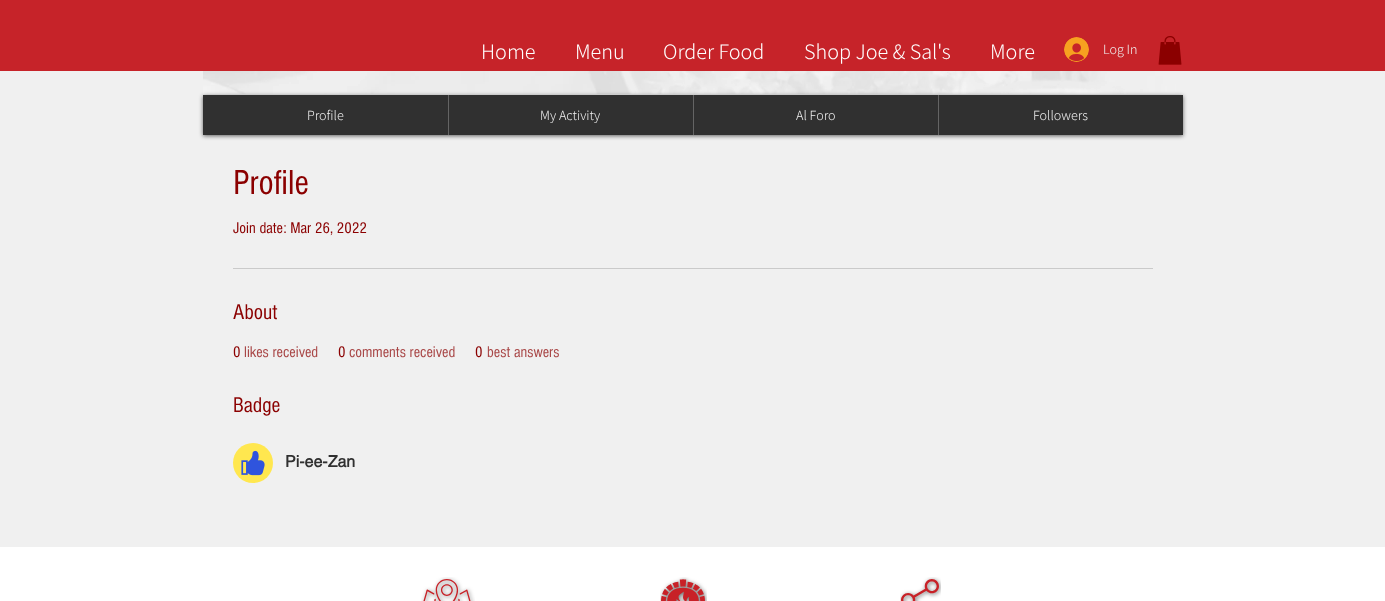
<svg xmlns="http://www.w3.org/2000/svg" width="1385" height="601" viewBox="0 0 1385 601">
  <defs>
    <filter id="blur1" x="-50%" y="-200%" width="200%" height="500%"><feGaussianBlur stdDeviation="2"/></filter>
  </defs>
  <rect width="100%" height="100%" fill="#f0f0f0"/>
  <rect x="0" y="0" width="1385" height="71" fill="#c62329"/>
  <text x="481" y="59" font-family="Assistant" font-size="22" font-weight="300" fill="#ffffff">Home</text>
  <text x="575" y="59" font-family="Assistant" font-size="22" font-weight="300" fill="#ffffff">Menu</text>
  <text x="663" y="59" font-family="Assistant" font-size="22" font-weight="300" fill="#ffffff">Order Food</text>
  <text x="804" y="59" font-family="Assistant" font-size="22" font-weight="300" fill="#ffffff">Shop Joe &amp; Sal's</text>
  <text x="990" y="59" font-family="Assistant" font-size="22" font-weight="300" fill="#ffffff">More</text>
  <image x="1064" y="37" width="25" height="25" href="img1.png"/>
  <text x="1103" y="54" font-family="Assistant" font-size="14" font-weight="300" fill="#f0f0f0">Log In</text>
  <image x="1158" y="36" width="24" height="29" href="img2.png"/>
  <image x="203" y="71" width="973" height="23" href="img3.png"/>
  <rect x="203" y="96" width="980" height="40" fill="#000000" fill-opacity="0.6" filter="url(#blur1)"/>
  <rect x="203" y="95" width="980" height="40" fill="#303030"/>
  <text x="307" y="120" font-family="Assistant" font-size="14" font-weight="300" fill="#f0f0f0">Profile</text>
  <rect x="448" y="95" width="1" height="40" fill="#646464"/>
  <text x="540" y="120" font-family="Assistant" font-size="14" font-weight="300" fill="#f0f0f0">My Activity</text>
  <rect x="693" y="95" width="1" height="40" fill="#646464"/>
  <text x="796" y="120" font-family="Assistant" font-size="14" font-weight="300" fill="#f0f0f0">Al Foro</text>
  <rect x="938" y="95" width="1" height="40" fill="#646464"/>
  <text x="1033" y="120" font-family="Assistant" font-size="14" font-weight="300" fill="#f0f0f0">Followers</text>
  <text x="233" y="194" font-family="'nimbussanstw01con'" font-size="36" fill="#8b0000">Profile</text>
  <text x="233" y="233" font-family="'nimbussanstw01con'" font-size="16" fill="#8b0000">Join date: Mar 26, 2022</text>
  <rect x="233" y="268" width="920" height="1" fill="#cacaca"/>
  <text x="233" y="319" font-family="'nimbussanstw01con'" font-size="22" fill="#8b0000">About</text>
  <text x="233" y="357" font-family="'nimbussanstw01con'" font-size="16" fill="#8b0000">0</text>
  <text x="244" y="357" font-family="'nimbussanstw01con'" font-size="16" fill="#a94848">likes received</text>
  <text x="338" y="357" font-family="'nimbussanstw01con'" font-size="16" fill="#8b0000">0</text>
  <text x="349" y="357" font-family="'nimbussanstw01con'" font-size="16" fill="#a94848">comments received</text>
  <text x="475" y="357" font-family="'nimbussanstw01con'" font-size="16" fill="#8b0000">0</text>
  <text x="487" y="357" font-family="'nimbussanstw01con'" font-size="16" fill="#a94848">best answers</text>
  <text x="233" y="412" font-family="'nimbussanstw01con'" font-size="22" fill="#8b0000">Badge</text>
  <circle cx="253" cy="463" r="20" fill="#ffe74f"/>
  <image x="241" y="450" width="24" height="26" href="img4.png"/>
  <text x="285" y="467" font-family="helvetica" font-size="16" font-weight="bold" fill="#303030">Pi-ee-Zan</text>
  <rect x="0" y="547" width="1385" height="54" fill="#ffffff"/>
  <image x="421" y="577" width="54" height="24" href="img5.png"/>
  <image x="660" y="577" width="47" height="24" href="img6.png"/>
  <image x="900" y="577" width="41" height="24" href="img7.png"/>
</svg>
